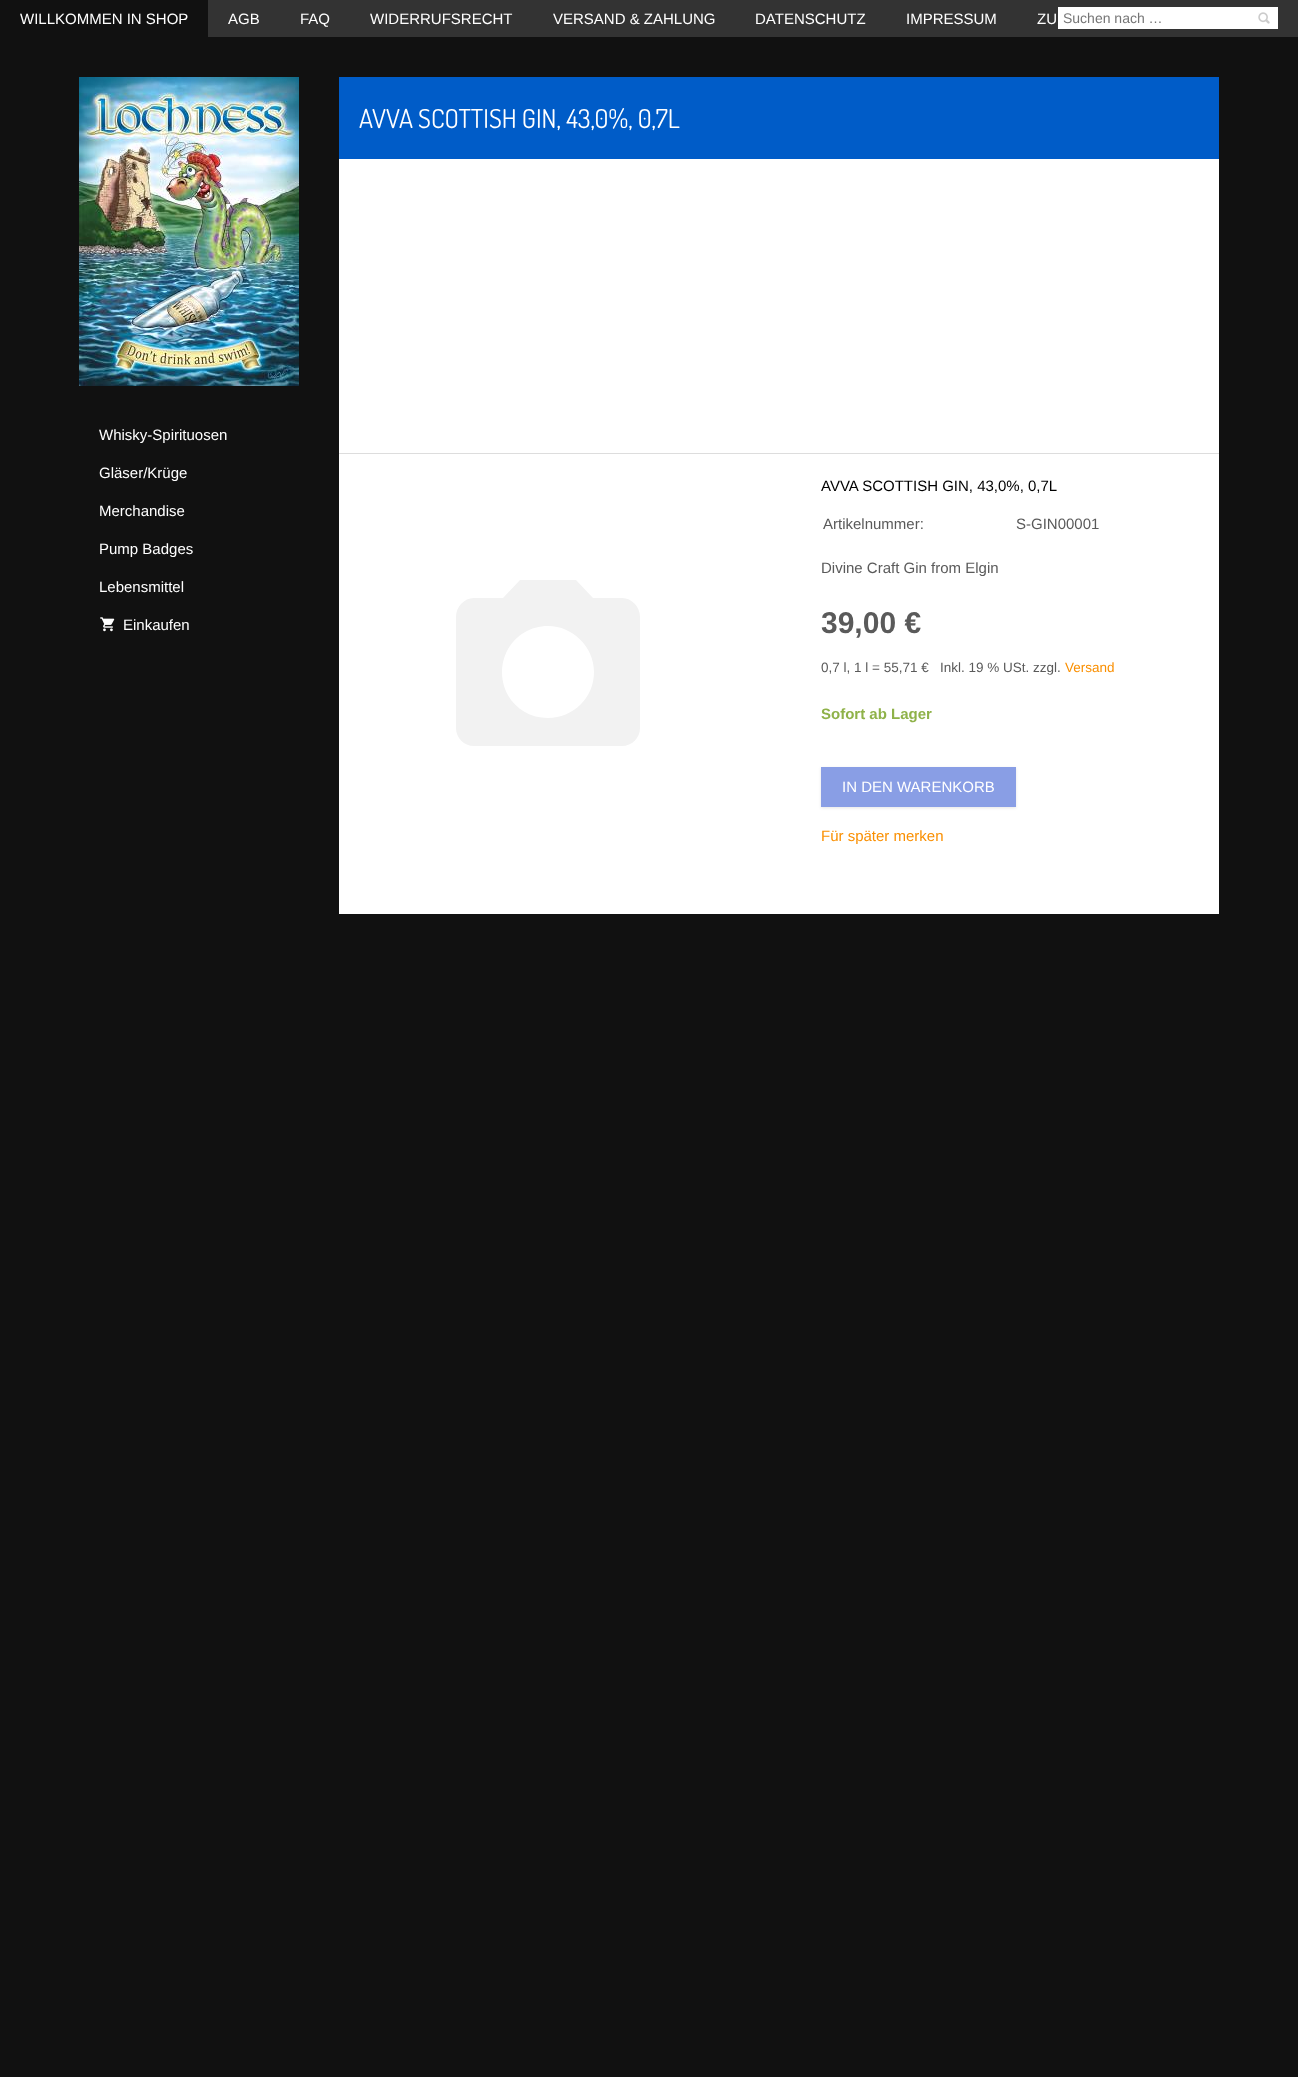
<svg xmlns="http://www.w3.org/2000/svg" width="1298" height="2077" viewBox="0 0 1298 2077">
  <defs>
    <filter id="blur1" x="-50%" y="-200%" width="200%" height="500%"><feGaussianBlur stdDeviation="1.5"/></filter>
  </defs>
  <rect width="100%" height="100%" fill="#111111"/>
  <rect x="208" y="0" width="1090" height="37" fill="#333333"/>
  <text x="20" y="24" font-family="Liberation Sans" font-size="15" fill="#ffffff">WILLKOMMEN IN SHOP</text>
  <text x="228" y="24" font-family="Liberation Sans" font-size="15" fill="#ffffff">AGB</text>
  <text x="300" y="24" font-family="Liberation Sans" font-size="15" fill="#ffffff">FAQ</text>
  <text x="370" y="24" font-family="Liberation Sans" font-size="15" fill="#ffffff">WIDERRUFSRECHT</text>
  <text x="553" y="24" font-family="Liberation Sans" font-size="15" fill="#ffffff">VERSAND &amp; ZAHLUNG</text>
  <text x="755" y="24" font-family="Liberation Sans" font-size="15" fill="#ffffff">DATENSCHUTZ</text>
  <text x="906" y="24" font-family="Liberation Sans" font-size="15" fill="#ffffff">IMPRESSUM</text>
  <text x="1037" y="24" font-family="Liberation Sans" font-size="15" fill="#ffffff">ZU</text>
  <rect x="1058" y="7" width="220" height="22" fill="#ffffff"/>
  <text x="1063" y="23" font-family="Liberation Sans" font-size="14" fill="#757575">Suchen nach …</text>
  <image x="1258" y="12" width="12" height="12" href="img1.png"/>
  <image x="79" y="77" width="220" height="309" href="img2.png"/>
  <text x="99" y="440" font-family="Liberation Sans" font-size="15" fill="#ffffff">Whisky-Spirituosen</text>
  <text x="99" y="478" font-family="Liberation Sans" font-size="15" fill="#ffffff">Gläser/Krüge</text>
  <text x="99" y="516" font-family="Liberation Sans" font-size="15" fill="#ffffff">Merchandise</text>
  <text x="99" y="554" font-family="Liberation Sans" font-size="15" fill="#ffffff">Pump Badges</text>
  <text x="99" y="592" font-family="Liberation Sans" font-size="15" fill="#ffffff">Lebensmittel</text>
  <image x="100" y="617" width="15" height="15" href="img3.png"/>
  <text x="123" y="630" font-family="Liberation Sans" font-size="15" fill="#ffffff">Einkaufen</text>
  <rect x="339" y="159" width="880" height="755" fill="#ffffff"/>
  <rect x="339" y="77" width="880" height="82" fill="#005cc8"/>
  <text x="359" y="128" font-family="Dosis" font-size="26" fill="#ffffff">AVVA SCOTTISH GIN, 43,0%, 0,7L</text>
  <rect x="339" y="453" width="880" height="1" fill="#dddddd"/>
  <path d="M520 580L503 598H474C464 598 456 607 456 617V728C456 738 464 746 474 746H622C632 746 640 738 640 728V617C640 607 632 598 622 598H593L576 580ZM548 718C522 718 502 698 502 672C502 647 522 626 548 626C573 626 594 647 594 672C594 698 573 718 548 718Z" fill="#f2f2f2"/>
  <text x="821" y="491" font-family="Liberation Sans" font-size="15" fill="#000000">AVVA SCOTTISH GIN, 43,0%, 0,7L</text>
  <text x="823" y="529" font-family="Liberation Sans" font-size="15" fill="#5a5a5a">Artikelnummer:</text>
  <text x="1016" y="529" font-family="Liberation Sans" font-size="15" fill="#5a5a5a">S-GIN00001</text>
  <text x="821" y="573" font-family="Liberation Sans" font-size="15" fill="#5a5a5a">Divine Craft Gin from Elgin</text>
  <text x="821" y="633" font-family="Liberation Sans" font-size="30" font-weight="bold" fill="#5a5a5a">39,00 €</text>
  <text x="821" y="672" font-family="Liberation Sans" font-size="13.5" fill="#5a5a5a">0,7 l, 1 l = 55,71 €</text>
  <text x="940" y="672" font-family="Liberation Sans" font-size="13.5" fill="#5a5a5a">Inkl. 19 % USt. zzgl.</text>
  <text x="1065" y="672" font-family="Liberation Sans" font-size="13.5" fill="#fa8f00">Versand</text>
  <text x="821" y="719" font-family="Liberation Sans" font-size="15" font-weight="bold" fill="#8fb249">Sofort ab Lager</text>
  <rect x="821" y="768" width="195" height="40" fill="#000000" fill-opacity="0.1" filter="url(#blur1)"/>
  <rect x="821" y="767" width="195" height="40" fill="#899ee5"/>
  <text x="842" y="792" font-family="Liberation Sans" font-size="15" fill="#ffffff">IN DEN WARENKORB</text>
  <text x="821" y="841" font-family="Liberation Sans" font-size="15" fill="#fa8f00">Für später merken</text>
</svg>
